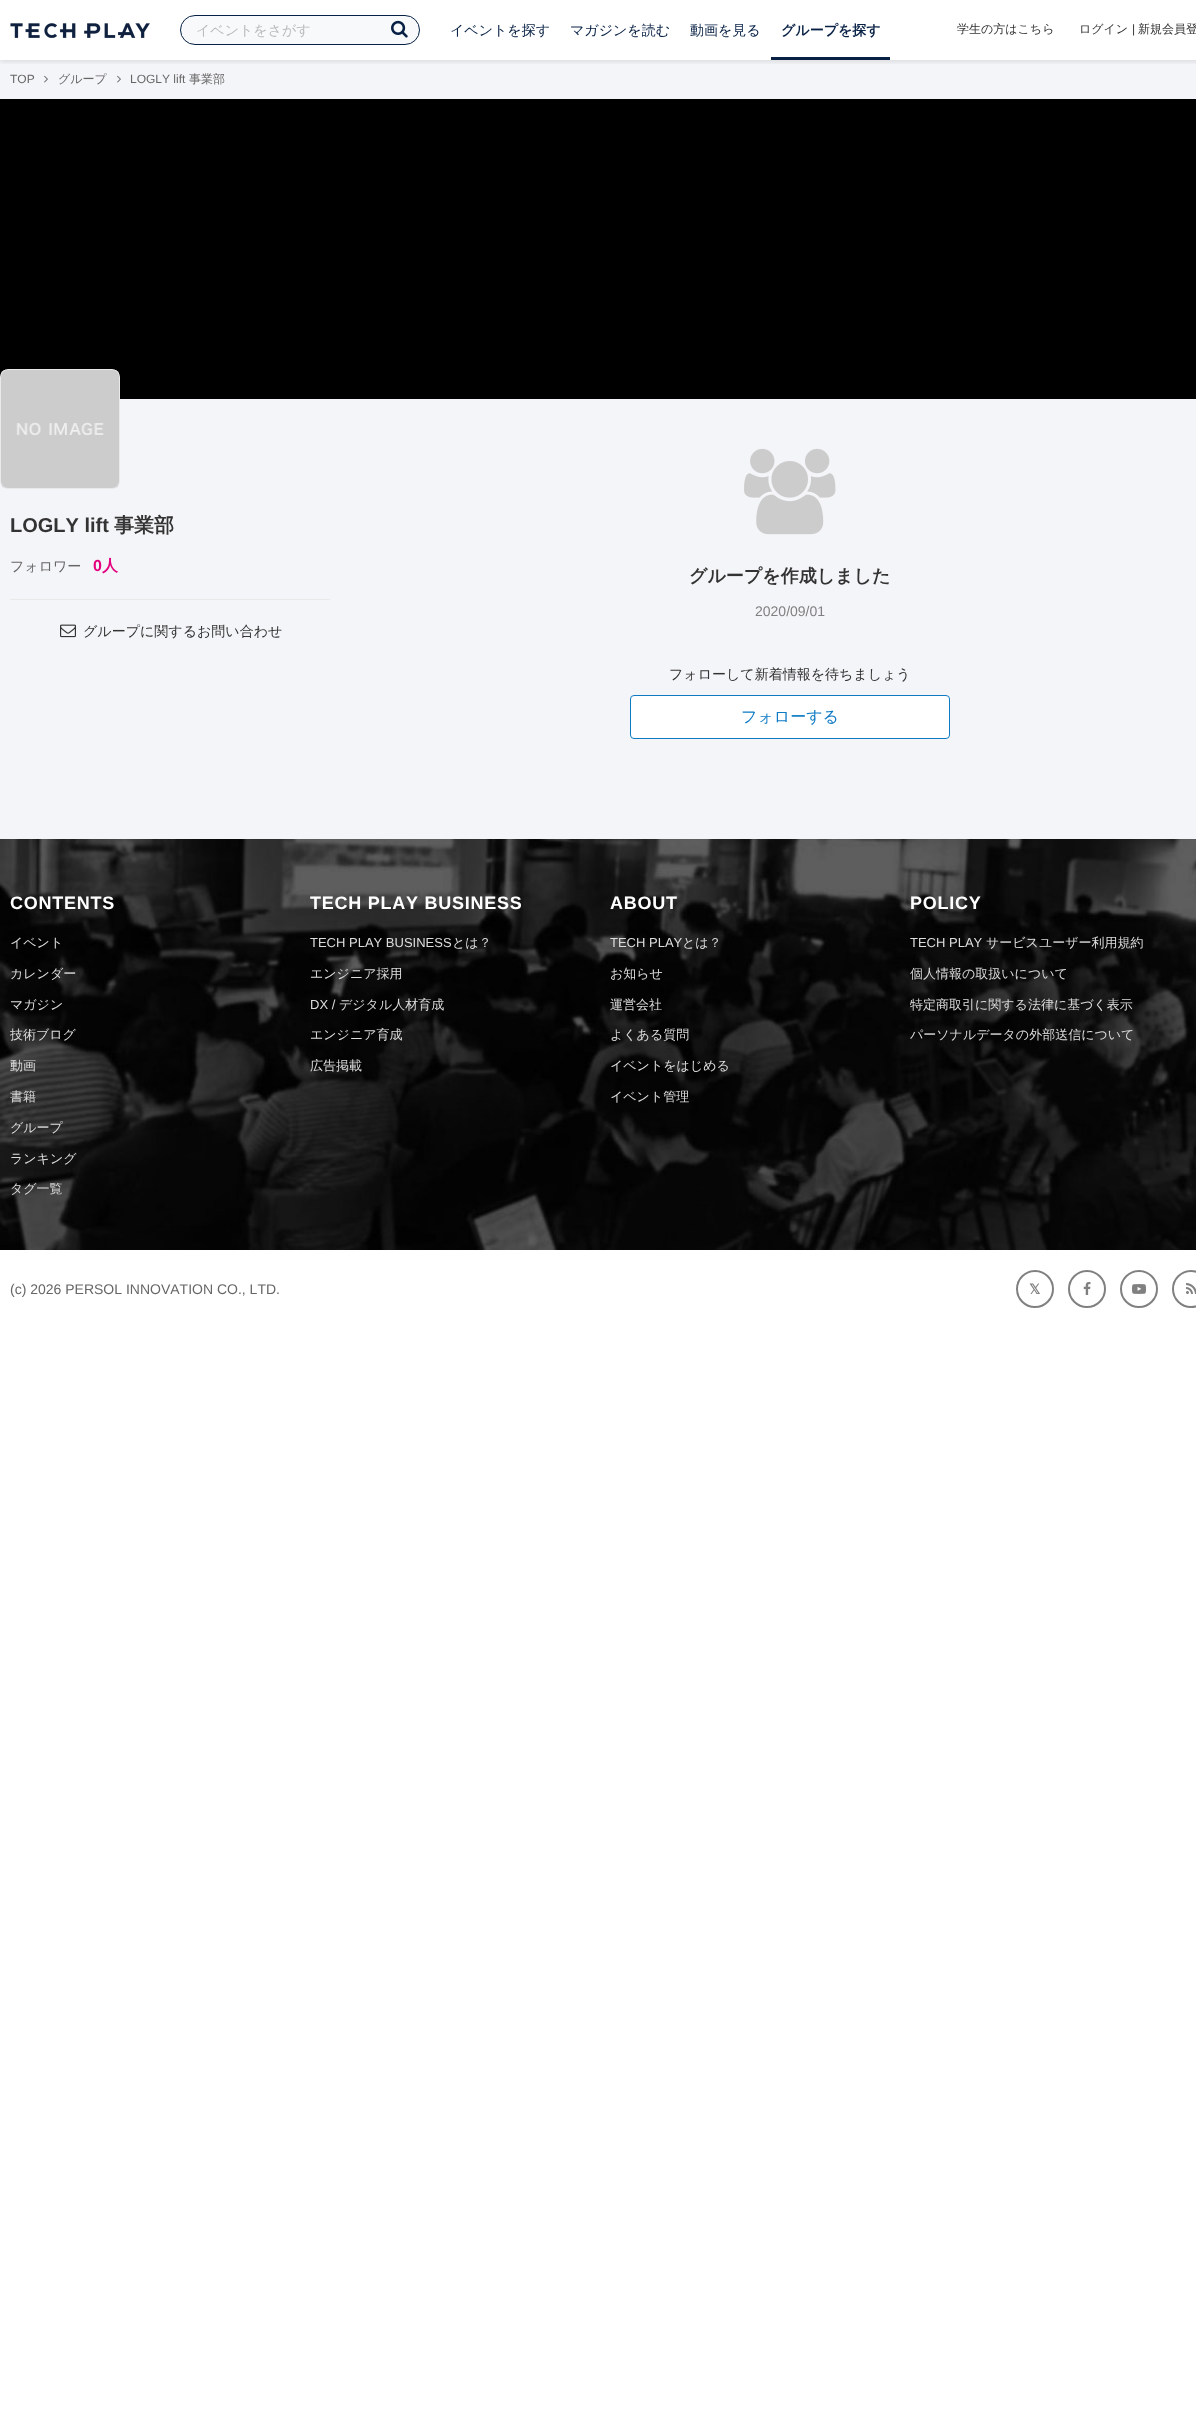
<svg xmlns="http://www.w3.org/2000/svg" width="1196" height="2418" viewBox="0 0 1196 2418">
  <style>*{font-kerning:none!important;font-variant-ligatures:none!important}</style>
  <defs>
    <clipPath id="clip1"><rect x="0" y="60" width="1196" height="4"/></clipPath>
    <filter id="blur1" x="-50%" y="-200%" width="200%" height="500%"><feGaussianBlur stdDeviation="2.5"/></filter>
  </defs>
  <rect width="100%" height="100%" fill="#ffffff"/>
  <rect x="0" y="60" width="1196" height="779" fill="#f4f5f8"/>
  <g clip-path="url(#clip1)">
    <rect x="0" y="2" width="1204" height="60" fill="#000000" fill-opacity="0.1" filter="url(#blur1)"/>
  </g>
  <image x="10" y="23" width="140" height="15" href="img1.png"/>
  <rect x="180.5" y="15.5" width="239" height="29" rx="14.5" fill="#f7f9fb" stroke="#072044"/>
  <text x="196" y="35" font-family="WenQuanYi Zen Hei" font-size="14" font-weight="500" fill="#bbbbbb">イベントをさがす</text>
  <image x="391" y="20" width="17" height="18" href="img2.png"/>
  <text x="450" y="35" font-family="WenQuanYi Zen Hei" font-size="14" font-weight="500" fill="#072044">イベントを探す</text>
  <text x="570" y="35" font-family="WenQuanYi Zen Hei" font-size="14" font-weight="500" fill="#072044">マガジンを読む</text>
  <text x="690" y="35" font-family="WenQuanYi Zen Hei" font-size="14" font-weight="500" fill="#072044">動画を見る</text>
  <text x="781" y="35" font-family="WenQuanYi Zen Hei" font-size="14" font-weight="bold" fill="#072044">グループを探す</text>
  <rect x="771" y="57" width="119" height="3" fill="#072044"/>
  <text x="957" y="33" font-family="WenQuanYi Zen Hei" font-size="12" font-weight="500" fill="#333333">学生の方はこちら</text>
  <text x="1079" y="33" font-family="WenQuanYi Zen Hei" font-size="12" font-weight="500" fill="#333333">ログイン</text>
  <text x="1132" y="33" font-family="Liberation Sans" font-size="12" fill="#333333">|</text>
  <text x="1138" y="33" font-family="WenQuanYi Zen Hei" font-size="12" font-weight="500" fill="#333333">新規会員登</text>
  <text x="10" y="83" font-family="Liberation Sans" font-size="12" fill="#666666">TOP</text>
  <image x="44" y="75" width="4" height="8" href="img3.png"/>
  <text x="58" y="83" font-family="WenQuanYi Zen Hei" font-size="12" font-weight="500" fill="#666666">グループ</text>
  <image x="117" y="75" width="4" height="8" href="img3.png"/>
  <text x="130" y="83" font-family="Liberation Sans" font-size="12" fill="#666666">LOGLY lift</text>
  <text x="189" y="83" font-family="WenQuanYi Zen Hei" font-size="12" font-weight="500" fill="#666666">事業部</text>
  <rect x="0" y="99" width="1196" height="300" fill="#000000"/>
  <image x="1" y="370" width="118" height="118" href="img4.png"/>
  <rect x="0.5" y="369.5" width="119" height="119" rx="7.5" fill="none" stroke="#e9e9e9"/>
  <rect x="10" y="599" width="320" height="1" fill="#e9e9e9"/>
  <text x="10" y="532" font-family="Liberation Sans" font-size="20" font-weight="bold" fill="#333333">LOGLY lift</text>
  <text x="114" y="532" font-family="WenQuanYi Zen Hei" font-size="20" font-weight="bold" fill="#333333">事業部</text>
  <text x="10" y="571" font-family="WenQuanYi Zen Hei" font-size="14" font-weight="500" fill="#666666">フォロワー</text>
  <text x="93" y="571" font-family="Liberation Sans" font-size="16" font-weight="bold" fill="#e3017f">0</text>
  <text x="102" y="571" font-family="WenQuanYi Zen Hei" font-size="16" font-weight="bold" fill="#e3017f">人</text>
  <image x="60" y="624" width="16" height="14" href="img5.png"/>
  <text x="83" y="636" font-family="WenQuanYi Zen Hei" font-size="14" font-weight="500" fill="#333333">グループに関するお問い合わせ</text>
  <image x="744" y="448" width="92" height="87" href="img6.png"/>
  <text x="689" y="582" font-family="WenQuanYi Zen Hei" font-size="18" font-weight="bold" fill="#333333">グループを作成しました</text>
  <text x="755" y="616" font-family="Liberation Sans" font-size="14" fill="#808080">2020/09/01</text>
  <text x="669" y="679" font-family="WenQuanYi Zen Hei" font-size="14" font-weight="500" fill="#333333">フォローして新着情報を待ちましょう</text>
  <rect x="630.5" y="695.5" width="319" height="43" rx="3.5" fill="#ffffff" stroke="#0e7ac4"/>
  <text x="741" y="722" font-family="WenQuanYi Zen Hei" font-size="16" font-weight="500" fill="#0e7ac4">フォローする</text>
  <image x="0" y="839" width="1196" height="411" href="img7.png"/>
  <text x="10" y="909" font-family="Liberation Sans" font-size="18" font-weight="bold" letter-spacing="0.75" fill="#ffffff">CONTENTS</text>
  <text x="10" y="947" font-family="WenQuanYi Zen Hei" font-size="13" font-weight="500" fill="#dddddd">イベント</text>
  <text x="10" y="978" font-family="WenQuanYi Zen Hei" font-size="13" font-weight="500" fill="#dddddd">カレンダー</text>
  <text x="10" y="1009" font-family="WenQuanYi Zen Hei" font-size="13" font-weight="500" fill="#dddddd">マガジン</text>
  <text x="10" y="1039" font-family="WenQuanYi Zen Hei" font-size="13" font-weight="500" fill="#dddddd">技術ブログ</text>
  <text x="10" y="1070" font-family="WenQuanYi Zen Hei" font-size="13" font-weight="500" fill="#dddddd">動画</text>
  <text x="10" y="1101" font-family="WenQuanYi Zen Hei" font-size="13" font-weight="500" fill="#dddddd">書籍</text>
  <text x="10" y="1132" font-family="WenQuanYi Zen Hei" font-size="13" font-weight="500" fill="#dddddd">グループ</text>
  <text x="10" y="1163" font-family="WenQuanYi Zen Hei" font-size="13" font-weight="500" fill="#dddddd">ランキング</text>
  <text x="10" y="1193" font-family="WenQuanYi Zen Hei" font-size="13" font-weight="500" fill="#dddddd">タグ一覧</text>
  <text x="310" y="909" font-family="Liberation Sans" font-size="18" font-weight="bold" letter-spacing="0.75" fill="#ffffff">TECH PLAY BUSINESS</text>
  <text x="310" y="947" font-family="Liberation Sans" font-size="13" fill="#dddddd">TECH PLAY BUSINESS</text>
  <text x="452" y="947" font-family="WenQuanYi Zen Hei" font-size="13" font-weight="500" fill="#dddddd">とは？</text>
  <text x="310" y="978" font-family="WenQuanYi Zen Hei" font-size="13" font-weight="500" fill="#dddddd">エンジニア採用</text>
  <text x="310" y="1009" font-family="Liberation Sans" font-size="13" fill="#dddddd">DX /</text>
  <text x="339" y="1009" font-family="WenQuanYi Zen Hei" font-size="13" font-weight="500" fill="#dddddd">デジタル人材育成</text>
  <text x="310" y="1039" font-family="WenQuanYi Zen Hei" font-size="13" font-weight="500" fill="#dddddd">エンジニア育成</text>
  <text x="310" y="1070" font-family="WenQuanYi Zen Hei" font-size="13" font-weight="500" fill="#dddddd">広告掲載</text>
  <text x="610" y="909" font-family="Liberation Sans" font-size="18" font-weight="bold" letter-spacing="0.75" fill="#ffffff">ABOUT</text>
  <text x="610" y="947" font-family="Liberation Sans" font-size="13" fill="#dddddd">TECH PLAY</text>
  <text x="682" y="947" font-family="WenQuanYi Zen Hei" font-size="13" font-weight="500" fill="#dddddd">とは？</text>
  <text x="610" y="978" font-family="WenQuanYi Zen Hei" font-size="13" font-weight="500" fill="#dddddd">お知らせ</text>
  <text x="610" y="1009" font-family="WenQuanYi Zen Hei" font-size="13" font-weight="500" fill="#dddddd">運営会社</text>
  <text x="610" y="1039" font-family="WenQuanYi Zen Hei" font-size="13" font-weight="500" fill="#dddddd">よくある質問</text>
  <text x="610" y="1070" font-family="WenQuanYi Zen Hei" font-size="13" font-weight="500" fill="#dddddd">イベントをはじめる</text>
  <text x="610" y="1101" font-family="WenQuanYi Zen Hei" font-size="13" font-weight="500" fill="#dddddd">イベント管理</text>
  <text x="910" y="909" font-family="Liberation Sans" font-size="18" font-weight="bold" letter-spacing="0.75" fill="#ffffff">POLICY</text>
  <text x="910" y="947" font-family="Liberation Sans" font-size="13" fill="#dddddd">TECH PLAY</text>
  <text x="986" y="947" font-family="WenQuanYi Zen Hei" font-size="13" font-weight="500" fill="#dddddd">サービスユーザー利用規約</text>
  <text x="910" y="978" font-family="WenQuanYi Zen Hei" font-size="13" font-weight="500" fill="#dddddd">個人情報の取扱いについて</text>
  <text x="910" y="1009" font-family="WenQuanYi Zen Hei" font-size="13" font-weight="500" fill="#dddddd">特定商取引に関する法律に基づく表示</text>
  <text x="910" y="1039" font-family="WenQuanYi Zen Hei" font-size="13" font-weight="500" fill="#dddddd">パーソナルデータの外部送信について</text>
  <text x="10" y="1294" font-family="Liberation Sans" font-size="14" fill="#666666">(c) 2026 PERSOL INNOVATION CO., LTD.</text>
  <circle cx="1035" cy="1289" r="18" fill="none" stroke="#808080" stroke-width="2"/>
  <text x="1029" y="1294" font-family="DejaVu Sans" font-size="14" font-weight="bold" fill="#808080">𝕏</text>
  <circle cx="1087" cy="1289" r="18" fill="none" stroke="#808080" stroke-width="2"/>
  <image x="1083" y="1282" width="8" height="13" href="img8.png"/>
  <circle cx="1139" cy="1289" r="18" fill="none" stroke="#808080" stroke-width="2"/>
  <image x="1132" y="1284" width="14" height="10" href="img9.png"/>
  <circle cx="1191" cy="1289" r="18" fill="none" stroke="#808080" stroke-width="2"/>
  <image x="1186" y="1283" width="10" height="11" href="img10.png"/>
</svg>
